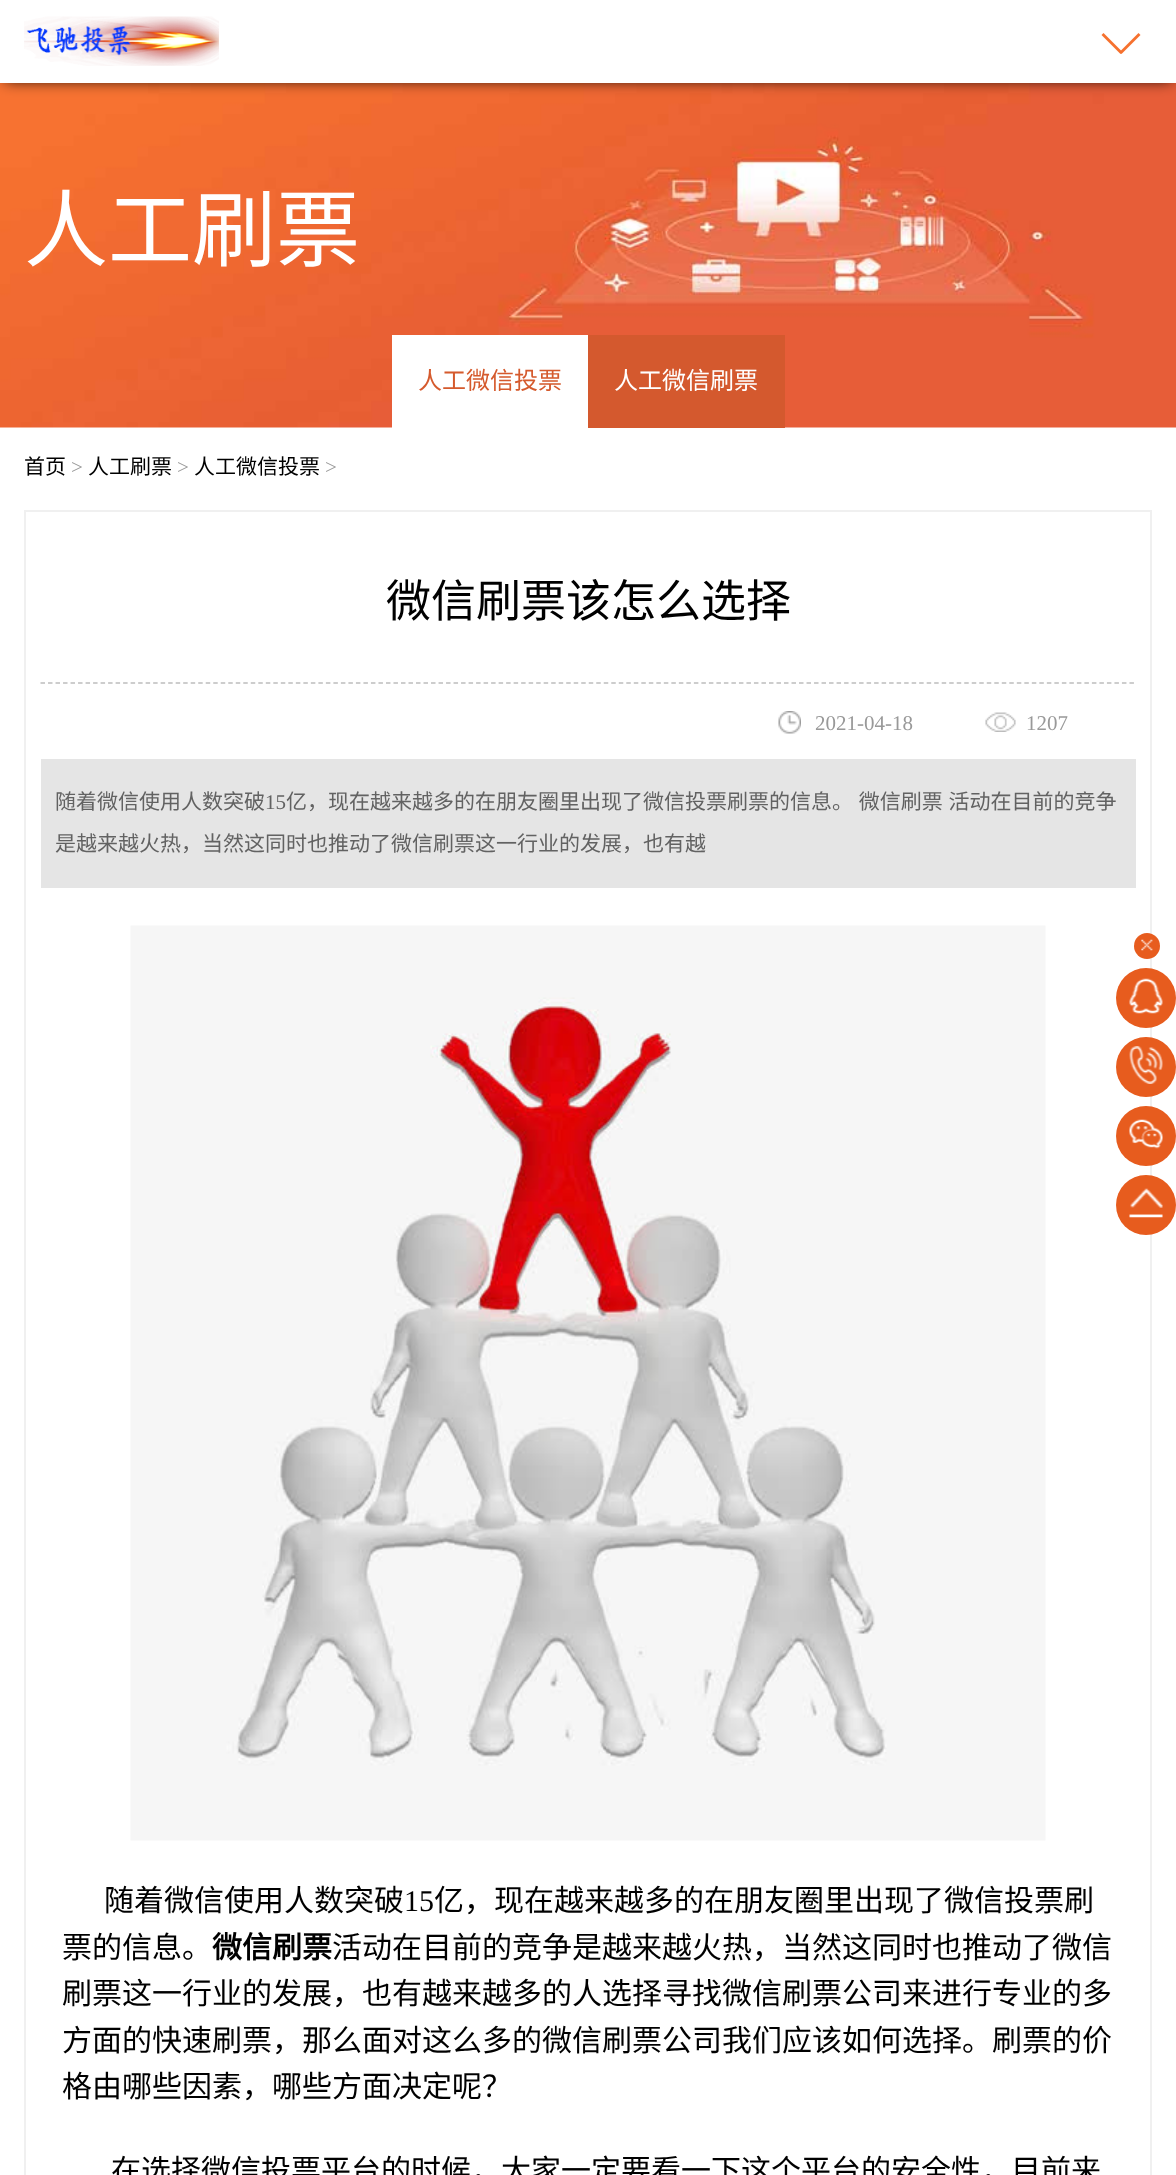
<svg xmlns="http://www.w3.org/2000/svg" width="1176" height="2175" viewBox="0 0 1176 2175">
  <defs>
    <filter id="blur1" x="-50%" y="-200%" width="200%" height="500%"><feGaussianBlur stdDeviation="7.5"/></filter>
  </defs>
  <rect width="100%" height="100%" fill="#ffffff"/>
  <image x="0" y="83" width="1176" height="345" href="img2.png"/>
  <rect x="5" y="6" width="1167" height="74" fill="#000000" filter="url(#blur1)"/>
  <rect x="0" y="0" width="1176" height="83" fill="#ffffff"/>
  <image x="24" y="16" width="195" height="50" href="img1.png"/>
  <path d="M1103.5 33L1122.5 52L1120.5 54L1101.5 35Z" fill="#f6712e"/>
  <path d="M1119.5 52L1138.5 33L1140.5 35L1121.5 54Z" fill="#f6712e"/>
  <text x="24" y="260" font-family="Noto Sans CJK SC" font-size="84" fill="#ffffff">人工刷票</text>
  <rect x="392" y="335" width="196" height="93" fill="#ffffff"/>
  <text x="418" y="389" font-family="Noto Sans CJK SC" font-size="24" fill="#d55a2d">人工微信投票</text>
  <rect x="588" y="335" width="197" height="93" fill="#d4592e"/>
  <text x="614" y="389" font-family="Noto Sans CJK SC" font-size="24" fill="#ffffff">人工微信刷票</text>
  <text x="24" y="474" font-family="Noto Sans CJK SC" font-size="21" fill="#000000">首页</text>
  <text x="71" y="474" font-family="Liberation Serif" font-size="21" fill="#999999">&gt;</text>
  <text x="88" y="474" font-family="Noto Sans CJK SC" font-size="21" fill="#000000">人工刷票</text>
  <text x="177" y="474" font-family="Liberation Serif" font-size="21" fill="#999999">&gt;</text>
  <text x="194" y="474" font-family="Noto Sans CJK SC" font-size="21" fill="#000000">人工微信投票</text>
  <text x="325" y="474" font-family="Liberation Serif" font-size="21" fill="#999999">&gt;</text>
  <rect x="25" y="511" width="1126" height="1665" fill="none" stroke="#f0f0f0" stroke-width="2"/>
  <path d="M40.5 683H1135.5" fill="none" stroke="#bdbdbd" stroke-width="1.5" stroke-dasharray="4.5 3.01"/>
  <text x="386" y="617" font-family="Noto Sans CJK SC" font-size="45" fill="#000000">微信刷票该怎么选择</text>
  <image x="778" y="711" width="23" height="23" href="img3.png"/>
  <text x="815" y="730" font-family="Liberation Serif" font-size="21" fill="#999999">2021-04-18</text>
  <image x="985" y="712" width="31" height="20" href="img4.png"/>
  <text x="1026" y="730" font-family="Liberation Serif" font-size="21" fill="#999999">1207</text>
  <rect x="41" y="759" width="1095" height="129" fill="#e5e5e5"/>
  <text x="55" y="809" font-family="Noto Sans CJK SC" font-size="21" fill="#626262">随着微信使用人数突破</text>
  <text x="265" y="809" font-family="Liberation Serif" font-size="21" fill="#626262">15</text>
  <text x="286" y="809" word-spacing="1" font-family="Noto Sans CJK SC" font-size="21" fill="#626262">亿，现在越来越多的在朋友圈里出现了微信投票刷票的信息。 微信刷票 活动在目前的竞争</text>
  <text x="55" y="851" font-family="Noto Sans CJK SC" font-size="21" fill="#626262">是越来越火热，当然这同时也推动了微信刷票这一行业的发展，也有越</text>
  <image x="130" y="925" width="916" height="916" href="img5.png"/>
  <text x="104" y="1911" font-family="Noto Sans CJK SC" font-size="30" fill="#000000">随着微信使用人数突破</text>
  <text x="404" y="1911" font-family="Liberation Serif" font-size="30" fill="#000000">15</text>
  <text x="434" y="1911" font-family="Noto Sans CJK SC" font-size="30" fill="#000000">亿，现在越来越多的在朋友圈里出现了微信投票刷</text>
  <text x="62" y="1958" font-family="Noto Sans CJK SC" font-size="30" fill="#000000">票的信息。</text>
  <text x="212" y="1958" font-family="Noto Sans CJK SC" font-size="30" font-weight="bold" fill="#000000">微信刷票</text>
  <text x="332" y="1958" font-family="Noto Sans CJK SC" font-size="30" fill="#000000">活动在目前的竞争是越来越火热，当然这同时也推动了微信</text>
  <text x="62" y="2004" font-family="Noto Sans CJK SC" font-size="30" fill="#000000">刷票这一行业的发展，也有越来越多的人选择寻找微信刷票公司来进行专业的多</text>
  <text x="62" y="2051" font-family="Noto Sans CJK SC" font-size="30" fill="#000000">方面的快速刷票，那么面对这么多的微信刷票公司我们应该如何选择。刷票的价</text>
  <text x="62" y="2097" font-family="Noto Sans CJK SC" font-size="30" fill="#000000">格由哪些因素，哪些方面决定呢？</text>
  <text x="111" y="2181" font-family="Noto Sans CJK SC" font-size="30" fill="#000000">在选择微信投票平台的时候，大家一定要看一下这个平台的安全性，目前来</text>
  <circle cx="1147" cy="946" r="13" fill="#e75c1e"/>
  <image x="1141" y="939" width="12" height="12" href="img6.png"/>
  <circle cx="1146" cy="998" r="30" fill="#e75c1e"/>
  <image x="1129" y="978" width="34" height="36" href="img7.png"/>
  <circle cx="1146" cy="1067" r="30" fill="#e75c1e"/>
  <image x="1129" y="1046" width="34" height="38" href="img8.png"/>
  <circle cx="1146" cy="1136" r="30" fill="#e75c1e"/>
  <image x="1129" y="1119" width="34" height="30" href="img9.png"/>
  <circle cx="1146" cy="1205" r="30" fill="#e75c1e"/>
  <image x="1129" y="1188" width="34" height="30" href="img10.png"/>
</svg>
